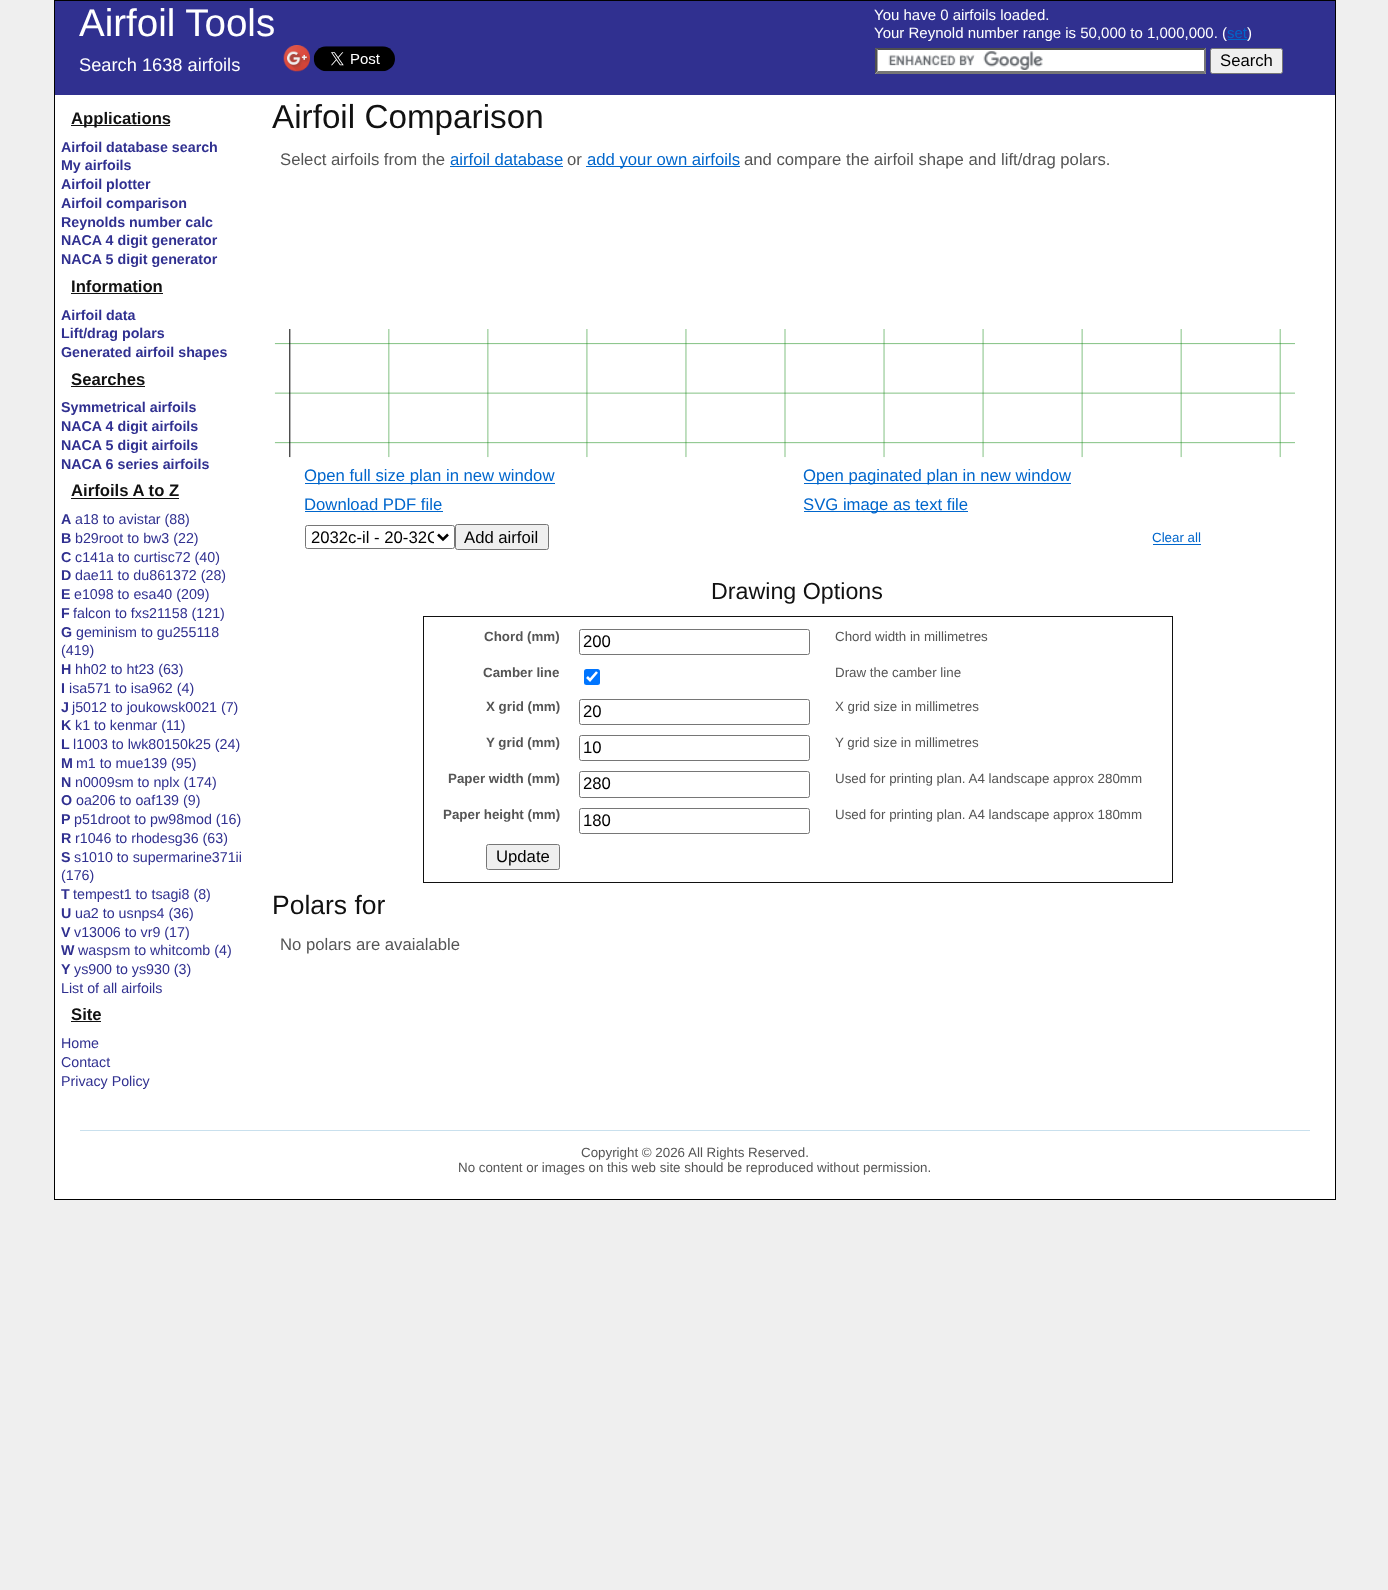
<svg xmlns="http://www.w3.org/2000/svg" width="1388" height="1590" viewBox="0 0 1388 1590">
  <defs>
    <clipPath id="clip1"><rect x="311" y="526" width="123" height="22"/></clipPath>
  </defs>
  <rect width="100%" height="100%" fill="#efefef"/>
  <rect x="55" y="95" width="1280" height="1104" fill="#ffffff"/>
  <rect x="54.5" y="0.5" width="1281" height="1199" fill="none" stroke="#000000"/>
  <rect x="55" y="1" width="1280" height="94" fill="#303090"/>
  <text x="79" y="36" font-family="Liberation Sans" font-size="38.5" fill="#ffffff">Airfoil Tools</text>
  <text x="79" y="71" font-family="Liberation Sans" font-size="18.25" fill="#ffffff">Search 1638 airfoils</text>
  <image x="283" y="45" width="27" height="27" href="img1.png"/>
  <image x="313" y="46" width="82" height="26" href="img2.png"/>
  <text x="874" y="20" font-family="Liberation Sans" font-size="15" fill="#ffffff">You have 0 airfoils loaded.</text>
  <text x="874" y="38" font-family="Liberation Sans" font-size="15" fill="#ffffff">Your Reynold number range is 50,000 to 1,000,000. (</text>
  <text x="1227" y="38" font-family="Liberation Sans" font-size="15" fill="#0066cc">set</text>
  <rect x="1228" y="39" width="20" height="1" fill="#0066cc"/>
  <text x="1247" y="38" font-family="Liberation Sans" font-size="15" fill="#ffffff">)</text>
  <rect x="875" y="48" width="331" height="26" fill="#ffffff"/>
  <image x="888" y="51" width="155" height="19" href="img3.png"/>
  <path d="M875 48H1206L1204 50H878Z" fill="#4f4f4f"/>
  <path d="M1206 47.5V74L1204 71V50Z" fill="#767676"/>
  <path d="M1206 74H875L878 71H1204Z" fill="#767676"/>
  <path d="M875 74V47.5L877.5 50V71Z" fill="#4f4f4f"/>
  <rect x="1210.5" y="48.5" width="72" height="25" rx="2" fill="#efefef" stroke="#767676"/>
  <text x="1220" y="66" font-family="Liberation Sans" font-size="16.7" fill="#000000">Search</text>
  <rect x="71" y="125" width="99" height="1" fill="#111111"/>
  <text x="71" y="124" font-family="Liberation Sans" font-size="16.7" font-weight="bold" fill="#111111">Applications</text>
  <text x="61" y="152" font-family="Liberation Sans" font-size="14.25" font-weight="bold" fill="#303090">Airfoil database search</text>
  <text x="61" y="170" font-family="Liberation Sans" font-size="14.25" font-weight="bold" fill="#303090">My airfoils</text>
  <text x="61" y="189" font-family="Liberation Sans" font-size="14.25" font-weight="bold" fill="#303090">Airfoil plotter</text>
  <text x="61" y="208" font-family="Liberation Sans" font-size="14.25" font-weight="bold" fill="#303090">Airfoil comparison</text>
  <text x="61" y="227" font-family="Liberation Sans" font-size="14.25" font-weight="bold" fill="#303090">Reynolds number calc</text>
  <text x="61" y="245" font-family="Liberation Sans" font-size="14.25" font-weight="bold" fill="#303090">NACA 4 digit generator</text>
  <text x="61" y="264" font-family="Liberation Sans" font-size="14.25" font-weight="bold" fill="#303090">NACA 5 digit generator</text>
  <text x="71" y="292" font-family="Liberation Sans" font-size="16.7" font-weight="bold" fill="#111111">Information</text>
  <rect x="71" y="293" width="92" height="1" fill="#111111"/>
  <text x="61" y="320" font-family="Liberation Sans" font-size="14.25" font-weight="bold" fill="#303090">Airfoil data</text>
  <text x="61" y="338" font-family="Liberation Sans" font-size="14.25" font-weight="bold" fill="#303090">Lift/drag polars</text>
  <text x="61" y="357" font-family="Liberation Sans" font-size="14.25" font-weight="bold" fill="#303090">Generated airfoil shapes</text>
  <text x="71" y="385" font-family="Liberation Sans" font-size="16.7" font-weight="bold" fill="#111111">Searches</text>
  <rect x="71" y="386" width="74" height="1" fill="#111111"/>
  <text x="61" y="412" font-family="Liberation Sans" font-size="14.25" font-weight="bold" fill="#303090">Symmetrical airfoils</text>
  <text x="61" y="431" font-family="Liberation Sans" font-size="14.25" font-weight="bold" fill="#303090">NACA 4 digit airfoils</text>
  <text x="61" y="450" font-family="Liberation Sans" font-size="14.25" font-weight="bold" fill="#303090">NACA 5 digit airfoils</text>
  <text x="61" y="469" font-family="Liberation Sans" font-size="14.25" font-weight="bold" fill="#303090">NACA 6 series airfoils</text>
  <text x="71" y="496" font-family="Liberation Sans" font-size="16.7" font-weight="bold" fill="#111111">Airfoils A to Z</text>
  <rect x="71" y="498" width="108" height="1" fill="#111111"/>
  <text x="61" y="524" font-family="Liberation Sans" font-size="14.25" font-weight="bold" fill="#303090">A</text>
  <text x="75" y="524" font-family="Liberation Sans" font-size="14.25" fill="#303090">a18 to avistar (88)</text>
  <text x="61" y="543" font-family="Liberation Sans" font-size="14.25" font-weight="bold" fill="#303090">B</text>
  <text x="75" y="543" font-family="Liberation Sans" font-size="14.25" fill="#303090">b29root to bw3 (22)</text>
  <text x="61" y="562" font-family="Liberation Sans" font-size="14.25" font-weight="bold" fill="#303090">C</text>
  <text x="75" y="562" font-family="Liberation Sans" font-size="14.25" fill="#303090">c141a to curtisc72 (40)</text>
  <text x="61" y="580" font-family="Liberation Sans" font-size="14.25" font-weight="bold" fill="#303090">D</text>
  <text x="75" y="580" font-family="Liberation Sans" font-size="14.25" fill="#303090">dae11 to du861372 (28)</text>
  <text x="61" y="599" font-family="Liberation Sans" font-size="14.25" font-weight="bold" fill="#303090">E</text>
  <text x="74" y="599" font-family="Liberation Sans" font-size="14.25" fill="#303090">e1098 to esa40 (209)</text>
  <text x="61" y="618" font-family="Liberation Sans" font-size="14.25" font-weight="bold" fill="#303090">F</text>
  <text x="73" y="618" font-family="Liberation Sans" font-size="14.25" fill="#303090">falcon to fxs21158 (121)</text>
  <text x="61" y="637" font-family="Liberation Sans" font-size="14.25" font-weight="bold" fill="#303090">G</text>
  <text x="76" y="637" font-family="Liberation Sans" font-size="14.25" fill="#303090">geminism to gu255118</text>
  <text x="61" y="655" font-family="Liberation Sans" font-size="14.25" fill="#303090">(419)</text>
  <text x="61" y="674" font-family="Liberation Sans" font-size="14.25" font-weight="bold" fill="#303090">H</text>
  <text x="75" y="674" font-family="Liberation Sans" font-size="14.25" fill="#303090">hh02 to ht23 (63)</text>
  <text x="61" y="693" font-family="Liberation Sans" font-size="14.25" font-weight="bold" fill="#303090">I</text>
  <text x="69" y="693" font-family="Liberation Sans" font-size="14.25" fill="#303090">isa571 to isa962 (4)</text>
  <text x="61" y="712" font-family="Liberation Sans" font-size="14.25" font-weight="bold" fill="#303090">J</text>
  <text x="72" y="712" font-family="Liberation Sans" font-size="14.25" fill="#303090">j5012 to joukowsk0021 (7)</text>
  <text x="61" y="730" font-family="Liberation Sans" font-size="14.25" font-weight="bold" fill="#303090">K</text>
  <text x="75" y="730" font-family="Liberation Sans" font-size="14.25" fill="#303090">k1 to kenmar (11)</text>
  <text x="61" y="749" font-family="Liberation Sans" font-size="14.25" font-weight="bold" fill="#303090">L</text>
  <text x="73" y="749" font-family="Liberation Sans" font-size="14.25" fill="#303090">l1003 to lwk80150k25 (24)</text>
  <text x="61" y="768" font-family="Liberation Sans" font-size="14.25" font-weight="bold" fill="#303090">M</text>
  <text x="76" y="768" font-family="Liberation Sans" font-size="14.25" fill="#303090">m1 to mue139 (95)</text>
  <text x="61" y="787" font-family="Liberation Sans" font-size="14.25" font-weight="bold" fill="#303090">N</text>
  <text x="75" y="787" font-family="Liberation Sans" font-size="14.25" fill="#303090">n0009sm to nplx (174)</text>
  <text x="61" y="805" font-family="Liberation Sans" font-size="14.25" font-weight="bold" fill="#303090">O</text>
  <text x="76" y="805" font-family="Liberation Sans" font-size="14.25" fill="#303090">oa206 to oaf139 (9)</text>
  <text x="61" y="824" font-family="Liberation Sans" font-size="14.25" font-weight="bold" fill="#303090">P</text>
  <text x="74" y="824" font-family="Liberation Sans" font-size="14.25" fill="#303090">p51droot to pw98mod (16)</text>
  <text x="61" y="843" font-family="Liberation Sans" font-size="14.25" font-weight="bold" fill="#303090">R</text>
  <text x="75" y="843" font-family="Liberation Sans" font-size="14.25" fill="#303090">r1046 to rhodesg36 (63)</text>
  <text x="61" y="862" font-family="Liberation Sans" font-size="14.25" font-weight="bold" fill="#303090">S</text>
  <text x="74" y="862" font-family="Liberation Sans" font-size="14.25" fill="#303090">s1010 to supermarine371ii</text>
  <text x="61" y="880" font-family="Liberation Sans" font-size="14.25" fill="#303090">(176)</text>
  <text x="61" y="899" font-family="Liberation Sans" font-size="14.25" font-weight="bold" fill="#303090">T</text>
  <text x="73" y="899" font-family="Liberation Sans" font-size="14.25" fill="#303090">tempest1 to tsagi8 (8)</text>
  <text x="61" y="918" font-family="Liberation Sans" font-size="14.25" font-weight="bold" fill="#303090">U</text>
  <text x="75" y="918" font-family="Liberation Sans" font-size="14.25" fill="#303090">ua2 to usnps4 (36)</text>
  <text x="61" y="937" font-family="Liberation Sans" font-size="14.25" font-weight="bold" fill="#303090">V</text>
  <text x="74" y="937" font-family="Liberation Sans" font-size="14.25" fill="#303090">v13006 to vr9 (17)</text>
  <text x="61" y="955" font-family="Liberation Sans" font-size="14.25" font-weight="bold" fill="#303090">W</text>
  <text x="78" y="955" font-family="Liberation Sans" font-size="14.25" fill="#303090">waspsm to whitcomb (4)</text>
  <text x="61" y="974" font-family="Liberation Sans" font-size="14.25" font-weight="bold" fill="#303090">Y</text>
  <text x="74" y="974" font-family="Liberation Sans" font-size="14.25" fill="#303090">ys900 to ys930 (3)</text>
  <text x="61" y="993" font-family="Liberation Sans" font-size="14.25" fill="#303090">List of all airfoils</text>
  <text x="71" y="1020" font-family="Liberation Sans" font-size="16.7" font-weight="bold" fill="#111111">Site</text>
  <rect x="71" y="1021" width="30" height="1" fill="#111111"/>
  <text x="61" y="1048" font-family="Liberation Sans" font-size="14.25" fill="#303090">Home</text>
  <text x="61" y="1067" font-family="Liberation Sans" font-size="14.25" fill="#303090">Contact</text>
  <text x="61" y="1086" font-family="Liberation Sans" font-size="14.25" fill="#303090">Privacy Policy</text>
  <text x="272" y="128" font-family="Liberation Sans" font-size="33.25" fill="#111111">Airfoil Comparison</text>
  <text x="280" y="165" font-family="Liberation Sans" font-size="16.7" fill="#555555">Select airfoils from the</text>
  <text x="450" y="165" font-family="Liberation Sans" font-size="16.7" fill="#0066cc">airfoil database</text>
  <rect x="450" y="166" width="113" height="1" fill="#0066cc"/>
  <text x="567" y="165" font-family="Liberation Sans" font-size="16.7" fill="#555555">or</text>
  <rect x="586" y="166" width="154" height="1" fill="#0066cc"/>
  <text x="587" y="165" font-family="Liberation Sans" font-size="16.7" fill="#0066cc">add your own airfoils</text>
  <text x="744" y="165" font-family="Liberation Sans" font-size="16.7" fill="#555555">and compare the airfoil shape and lift/drag polars.</text>
  <image x="274" y="329" width="1021" height="129" href="img4.png"/>
  <rect x="305" y="483" width="250" height="1" fill="#0066cc"/>
  <text x="304" y="481" font-family="Liberation Sans" font-size="16.7" fill="#0066cc">Open full size plan in new window</text>
  <rect x="804" y="483" width="267" height="1" fill="#0066cc"/>
  <text x="803" y="481" font-family="Liberation Sans" font-size="16.7" fill="#0066cc">Open paginated plan in new window</text>
  <text x="304" y="510" font-family="Liberation Sans" font-size="16.7" fill="#0066cc">Download PDF file</text>
  <rect x="305" y="511" width="138" height="1" fill="#0066cc"/>
  <rect x="804" y="511" width="164" height="1" fill="#0066cc"/>
  <text x="803" y="510" font-family="Liberation Sans" font-size="16.7" fill="#0066cc">SVG image as text file</text>
  <rect x="305.5" y="525.5" width="149" height="23" rx="2" fill="none" stroke="#767676"/>
  <path d="M438 534.5L443 539.5L448 534.5" fill="none" stroke="#000000" stroke-width="2.5"/>
  <g clip-path="url(#clip1)">
    <text x="311" y="543" font-family="Liberation Sans" font-size="16.7" fill="#000000">2032c-il - 20-32C</text>
  </g>
  <rect x="455.5" y="524.5" width="93" height="25" rx="2" fill="#efefef" stroke="#767676"/>
  <text x="464" y="543" font-family="Liberation Sans" font-size="16.7" fill="#000000">Add airfoil</text>
  <text x="1152" y="542" font-family="Liberation Sans" font-size="13.35" fill="#0066cc">Clear all</text>
  <rect x="1153" y="544" width="48" height="1" fill="#0066cc"/>
  <text x="711" y="599" font-family="Liberation Sans" font-size="23.25" fill="#111111">Drawing Options</text>
  <rect x="423.5" y="616.5" width="749" height="266" fill="none" stroke="#111111"/>
  <text x="484" y="641" font-family="Liberation Sans" font-size="13.35" font-weight="bold" fill="#555555">Chord (mm)</text>
  <rect x="579.5" y="629.5" width="230" height="25" rx="2" fill="none" stroke="#767676"/>
  <text x="583" y="647" font-family="Liberation Sans" font-size="16.7" fill="#000000">200</text>
  <text x="835" y="641" font-family="Liberation Sans" font-size="13.35" fill="#555555">Chord width in millimetres</text>
  <text x="483" y="677" font-family="Liberation Sans" font-size="13.35" font-weight="bold" fill="#555555">Camber line</text>
  <rect x="584" y="669" width="16" height="16" rx="2.5" fill="#0075ff"/>
  <path d="M587 677L590 680L597 672" fill="none" stroke="#ffffff" stroke-width="2.6"/>
  <text x="835" y="677" font-family="Liberation Sans" font-size="13.35" fill="#555555">Draw the camber line</text>
  <text x="486" y="711" font-family="Liberation Sans" font-size="13.35" font-weight="bold" fill="#555555">X grid (mm)</text>
  <rect x="579.5" y="699.5" width="230" height="25" rx="2" fill="none" stroke="#767676"/>
  <text x="583" y="717" font-family="Liberation Sans" font-size="16.7" fill="#000000">20</text>
  <text x="835" y="711" font-family="Liberation Sans" font-size="13.35" fill="#555555">X grid size in millimetres</text>
  <text x="486" y="747" font-family="Liberation Sans" font-size="13.35" font-weight="bold" fill="#555555">Y grid (mm)</text>
  <rect x="579.5" y="735.5" width="230" height="25" rx="2" fill="none" stroke="#767676"/>
  <text x="583" y="753" font-family="Liberation Sans" font-size="16.7" fill="#000000">10</text>
  <text x="835" y="747" font-family="Liberation Sans" font-size="13.35" fill="#555555">Y grid size in millimetres</text>
  <text x="448" y="783" font-family="Liberation Sans" font-size="13.35" font-weight="bold" fill="#555555">Paper width (mm)</text>
  <rect x="579.5" y="771.5" width="230" height="26" rx="2" fill="none" stroke="#767676"/>
  <text x="583" y="789" font-family="Liberation Sans" font-size="16.7" fill="#000000">280</text>
  <text x="835" y="783" font-family="Liberation Sans" font-size="13.35" fill="#555555">Used for printing plan. A4 landscape approx 280mm</text>
  <text x="443" y="819" font-family="Liberation Sans" font-size="13.35" font-weight="bold" fill="#555555">Paper height (mm)</text>
  <rect x="579.5" y="808.5" width="230" height="25" rx="2" fill="none" stroke="#767676"/>
  <text x="583" y="826" font-family="Liberation Sans" font-size="16.7" fill="#000000">180</text>
  <text x="835" y="819" font-family="Liberation Sans" font-size="13.35" fill="#555555">Used for printing plan. A4 landscape approx 180mm</text>
  <rect x="486.5" y="844.5" width="73" height="25" rx="2" fill="#efefef" stroke="#767676"/>
  <text x="496" y="862" font-family="Liberation Sans" font-size="16.7" fill="#000000">Update</text>
  <text x="272" y="914" font-family="Liberation Sans" font-size="26.5" fill="#111111">Polars for</text>
  <text x="280" y="950" font-family="Liberation Sans" font-size="16.7" fill="#555555">No polars are avaialable</text>
  <rect x="80" y="1130" width="1230" height="1" fill="#c9e0ed"/>
  <text x="581" y="1157" font-family="Liberation Sans" font-size="13.35" fill="#555555">Copyright © 2026 All Rights Reserved.</text>
  <text x="458" y="1172" font-family="Liberation Sans" font-size="13.35" fill="#555555">No content or images on this web site should be reproduced without permission.</text>
</svg>
